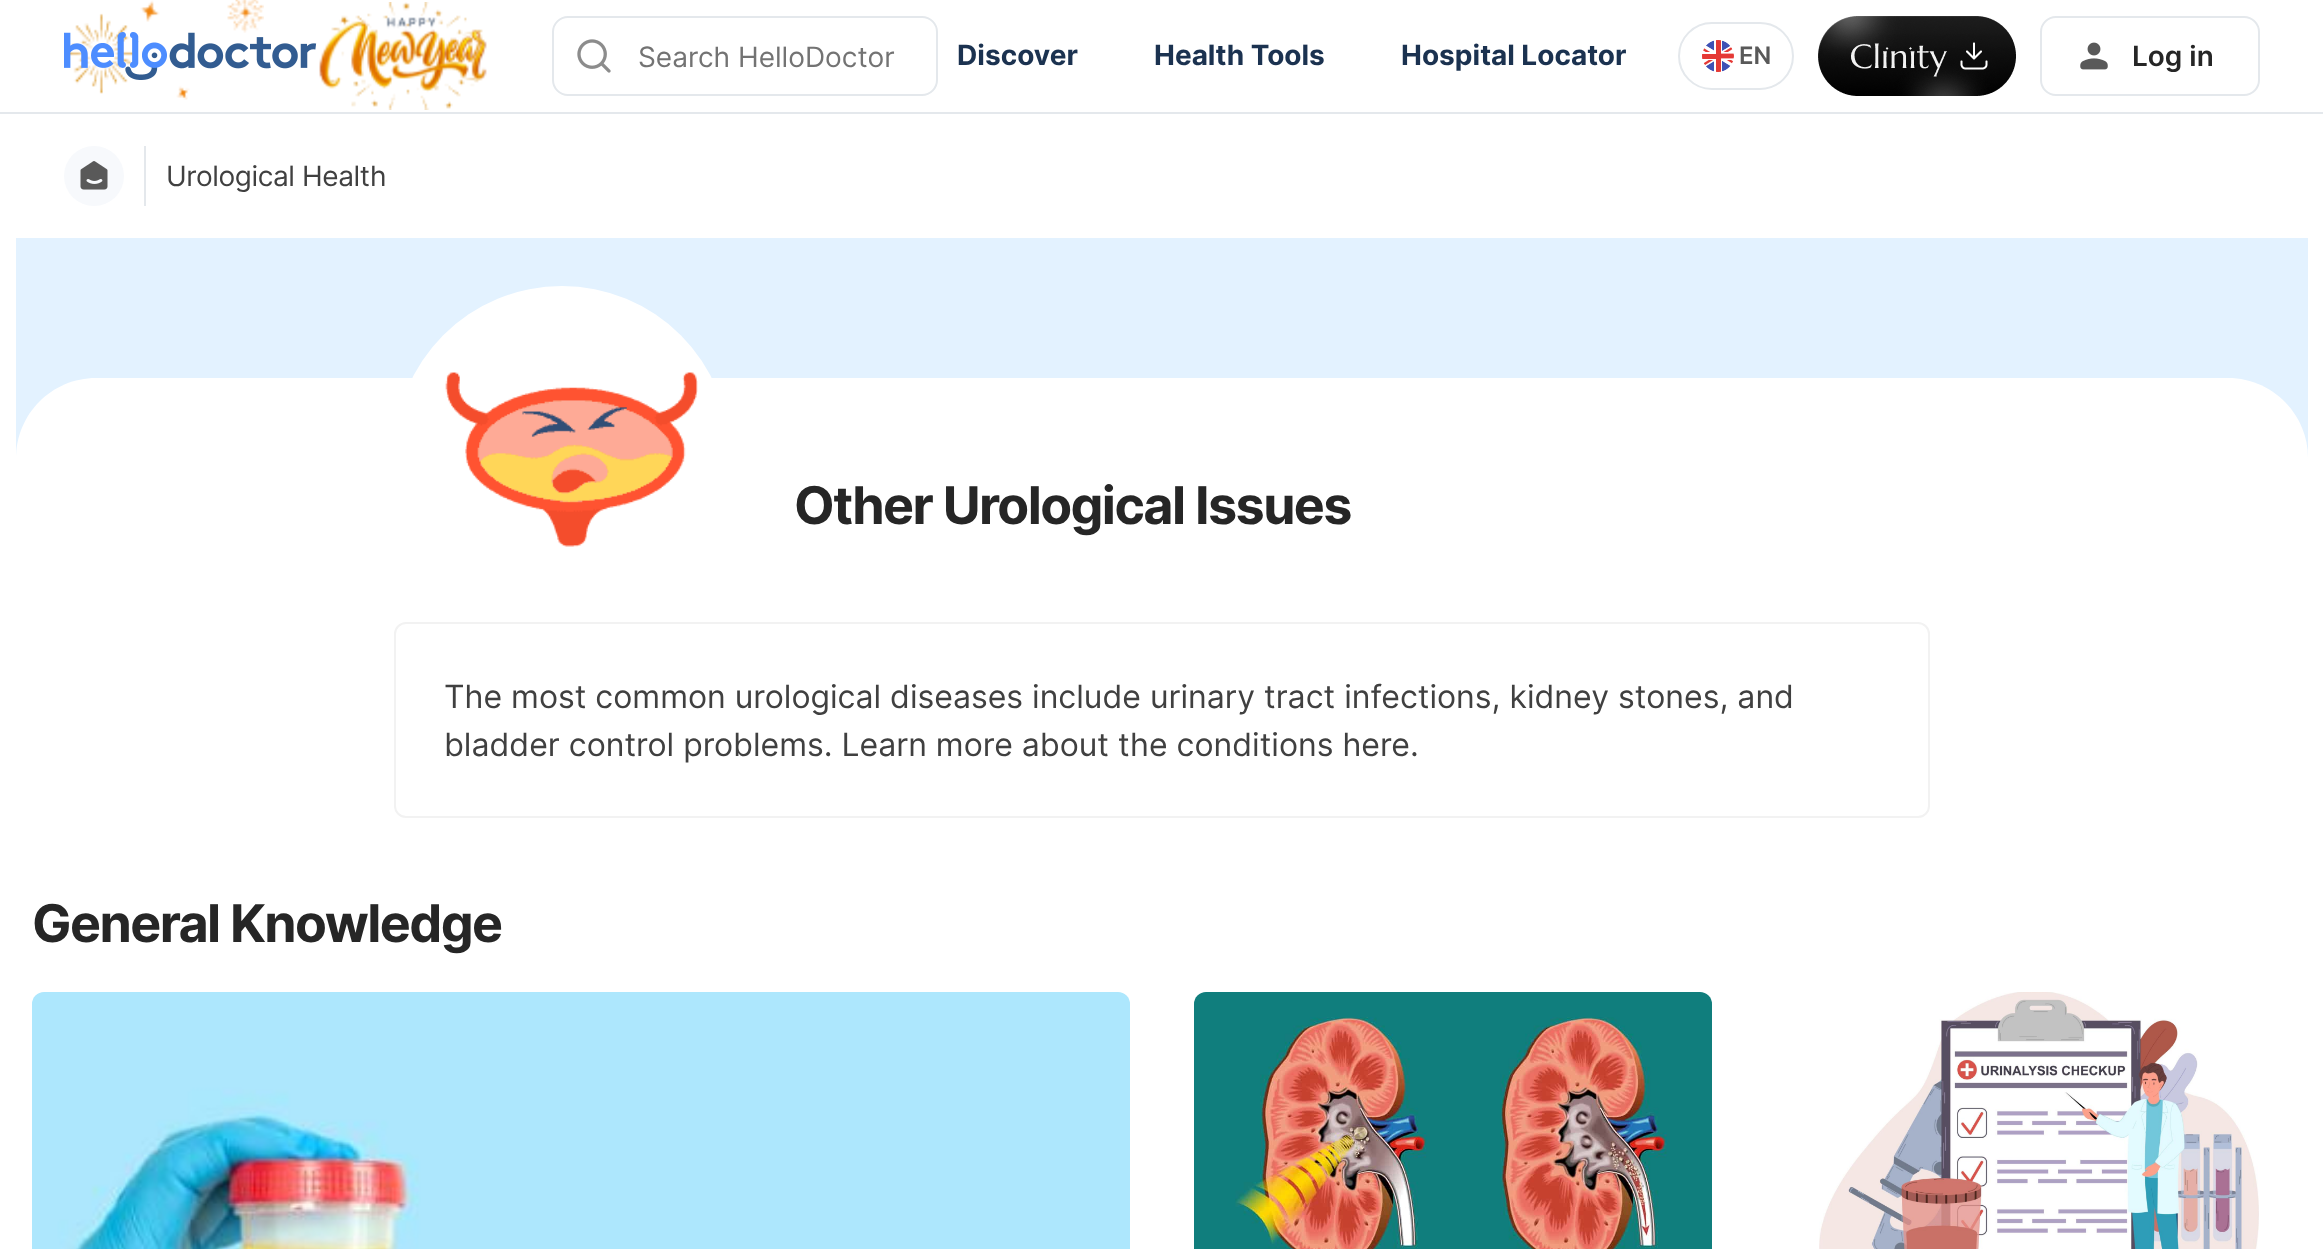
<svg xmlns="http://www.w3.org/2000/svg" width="2323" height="1249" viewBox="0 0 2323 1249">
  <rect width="100%" height="100%" fill="#ffffff"/>
  <rect x="0" y="112" width="2323" height="2" fill="#e4e8ec"/>
  <image x="70" y="0" width="194" height="100" href="img1.png"/>
  <image x="319" y="2" width="168" height="108" href="img2.png"/>
  <image x="64" y="32" width="253" height="48" href="img3.png"/>
  <rect x="553" y="17" width="384" height="78" rx="15" fill="none" stroke="#e4e8ec" stroke-width="2"/>
  <image x="577" y="39" width="34" height="34" href="img4.png"/>
  <text x="638" y="67" font-family="Inter" font-size="28" fill="#737373">Search HelloDoctor</text>
  <text x="957" y="65" font-family="Inter" font-size="28" font-weight="bold" fill="#1b3250">Discover</text>
  <text x="1154" y="65" font-family="Inter" font-size="28" font-weight="bold" fill="#1b3250">Health Tools</text>
  <text x="1401" y="65" font-family="Inter" font-size="28" font-weight="bold" fill="#1b3250">Hospital Locator</text>
  <rect x="1679" y="23" width="114" height="66" rx="33" fill="none" stroke="#e4e8ec" stroke-width="2"/>
  <image x="1702" y="40" width="32" height="32" href="img5.png"/>
  <text x="1739" y="64" font-family="Inter" font-size="24" font-weight="600" fill="#595959">EN</text>
  <image x="1818" y="16" width="198" height="80" href="img6.png"/>
  <rect x="2041" y="17" width="218" height="78" rx="15" fill="none" stroke="#e4e8ec" stroke-width="2"/>
  <image x="2080" y="42" width="28" height="28" href="img7.png"/>
  <text x="2132" y="66" font-family="Inter" font-size="28" font-weight="600" fill="#262626">Log in</text>
  <rect x="144" y="146" width="2" height="60" fill="#e4e8ec"/>
  <circle cx="94" cy="176" r="30" fill="#f7f9fc"/>
  <image x="80" y="161" width="28" height="29" href="img8.png"/>
  <text x="166" y="186" font-family="Inter" font-size="28" letter-spacing="-0.4" fill="#404040">Urological Health</text>
  <rect x="16" y="238" width="2292" height="220" fill="#e3f2ff"/>
  <path d="M96 378H2228C2272 378 2308 414 2308 458V818H16V458C16 414 52 378 96 378Z" fill="#ffffff"/>
  <circle cx="562" cy="454" r="168" fill="#ffffff"/>
  <image x="445" y="372" width="253" height="175" href="img9.png"/>
  <text x="794" y="524" font-family="Inter" font-size="52" font-weight="bold" letter-spacing="-1.6" fill="#262626">Other Urological Issues</text>
  <rect x="395" y="623" width="1534" height="194" rx="11" fill="none" stroke="#f2f2f2" stroke-width="2"/>
  <text x="444" y="708" font-family="Inter" font-size="32" fill="#404040">The most common urological diseases include urinary tract infections, kidney stones, and</text>
  <text x="444" y="756" font-family="Inter" font-size="32" fill="#404040">bladder control problems. Learn more about the conditions here.</text>
  <text x="32" y="942" font-family="Inter" font-size="52" font-weight="bold" letter-spacing="-1.6" fill="#262626">General Knowledge</text>
  <image x="32" y="992" width="1098" height="257" href="img10.png"/>
  <image x="1194" y="992" width="518" height="257" href="img11.png"/>
  <image x="1819" y="992" width="440" height="257" href="img12.png"/>
</svg>
